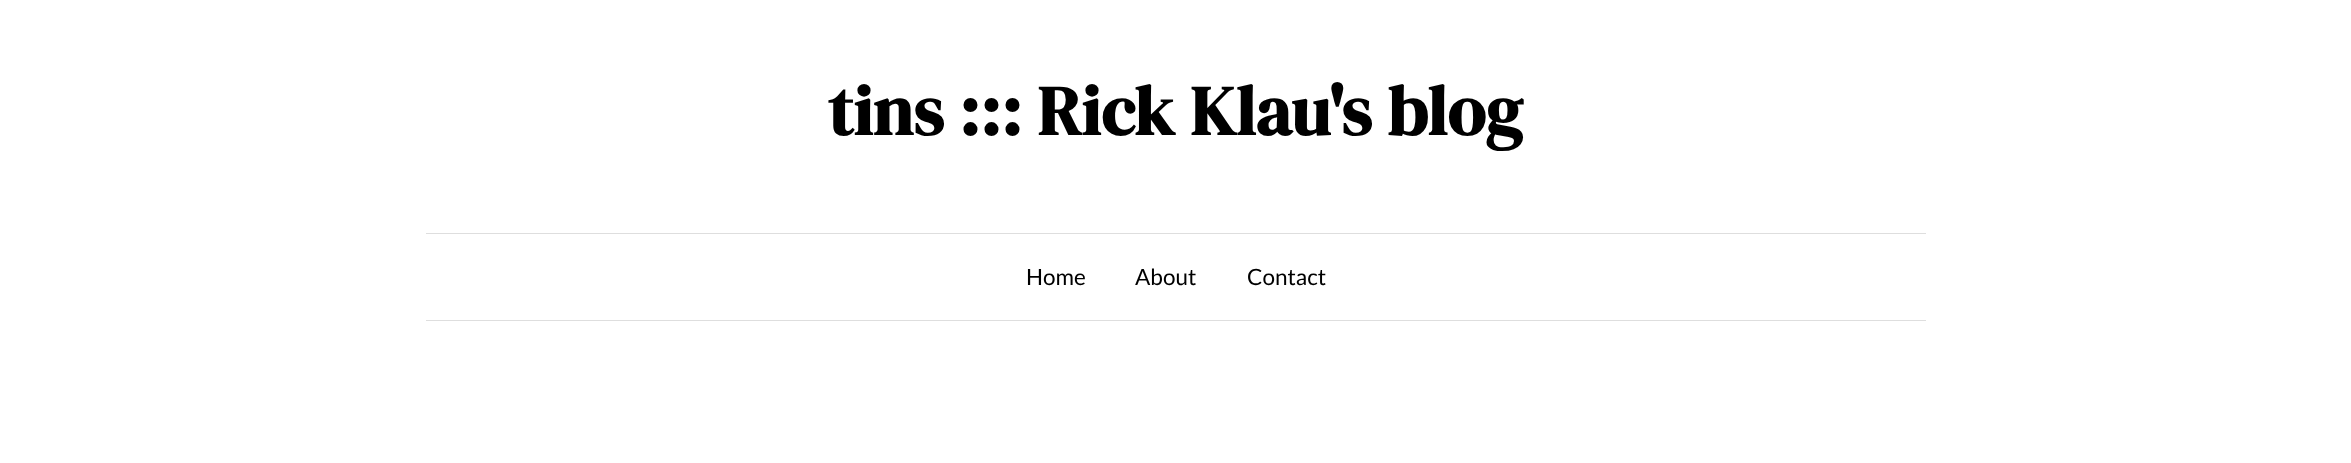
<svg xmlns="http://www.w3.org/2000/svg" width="2351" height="463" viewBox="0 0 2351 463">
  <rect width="100%" height="100%" fill="#ffffff"/>
  <text x="828" y="135" font-family="DM Serif Display" font-size="70" font-weight="bold" fill="#000000">tins ::: Rick Klau's blog</text>
  <rect x="426" y="233" width="1500" height="1" fill="#dedede"/>
  <rect x="426" y="320" width="1500" height="1" fill="#dedede"/>
  <text x="1026" y="285" font-family="Lato" font-size="22.5" fill="#000000">Home</text>
  <text x="1135" y="285" font-family="Lato" font-size="22.5" fill="#000000">About</text>
  <text x="1247" y="285" font-family="Lato" font-size="22.5" fill="#000000">Contact</text>
</svg>
